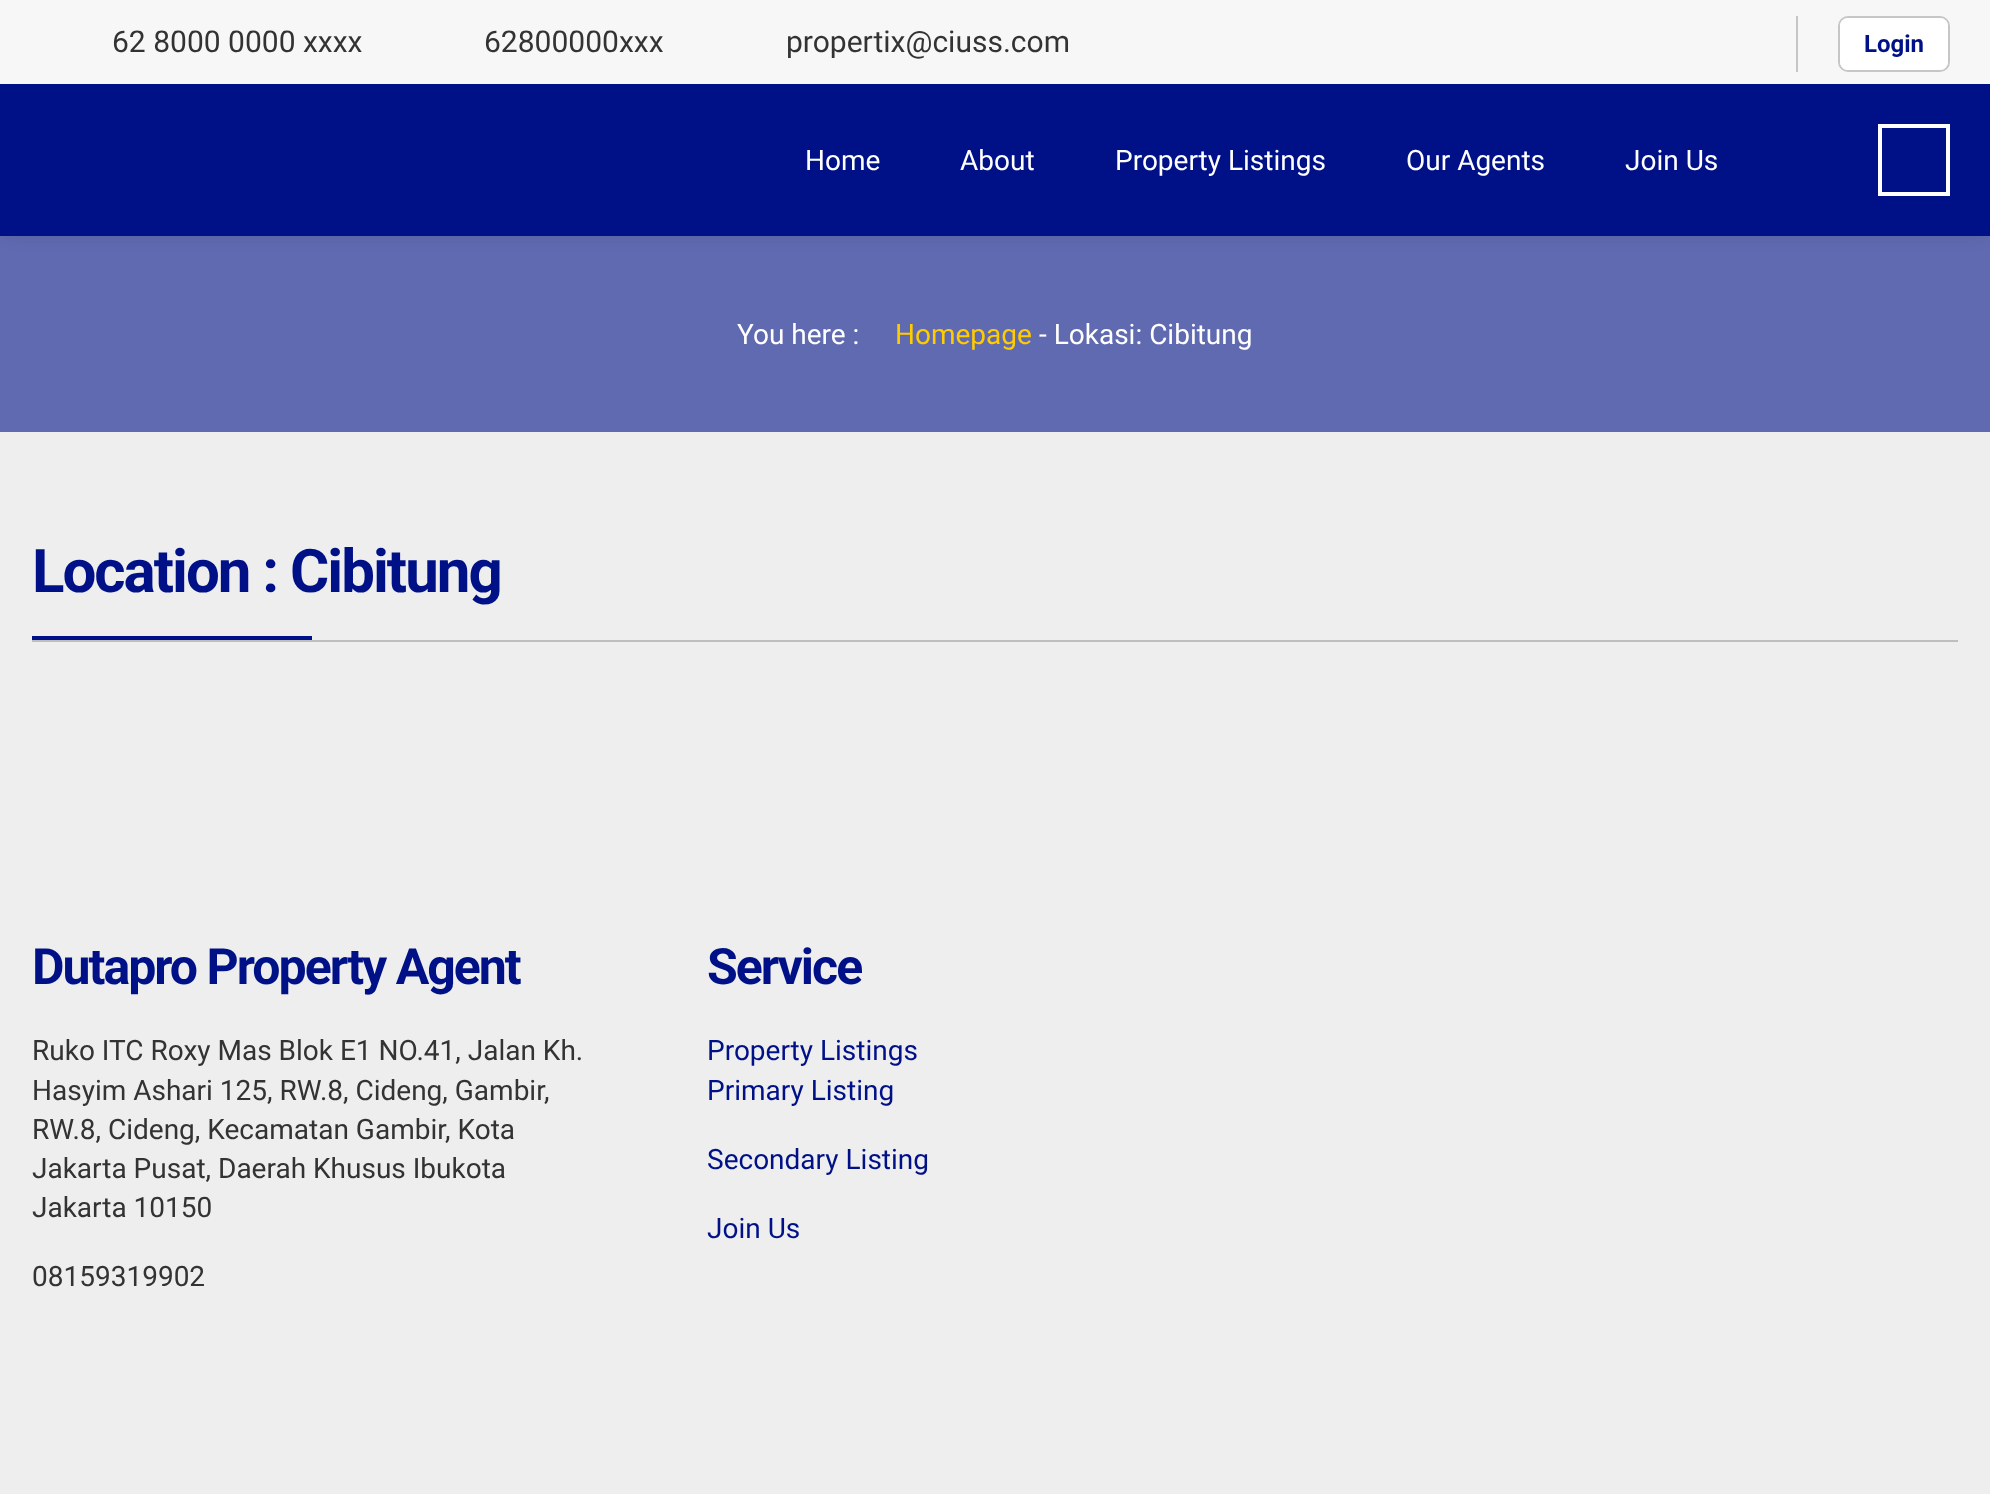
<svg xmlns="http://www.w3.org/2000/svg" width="1990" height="1494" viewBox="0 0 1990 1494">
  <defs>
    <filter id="blur1" x="-50%" y="-200%" width="200%" height="500%"><feGaussianBlur stdDeviation="10"/></filter>
  </defs>
  <rect width="100%" height="100%" fill="#eeeeee"/>
  <rect x="0" y="236" width="1990" height="196" fill="#606ab1"/>
  <rect x="0" y="0" width="1990" height="236" fill="#000000" fill-opacity="0.1" filter="url(#blur1)"/>
  <rect x="0" y="0" width="1990" height="84" fill="#f7f7f7"/>
  <text x="112" y="52" font-family="Roboto" font-size="30" fill="#333333">62 8000 0000 xxxx</text>
  <text x="484" y="52" font-family="Roboto" font-size="30" fill="#333333">62800000xxx</text>
  <text x="786" y="52" font-family="Roboto" font-size="30" fill="#333333">propertix@ciuss.com</text>
  <rect x="1796" y="16" width="2" height="56" fill="#c6c6c6"/>
  <rect x="1839" y="17" width="110" height="54" rx="9" fill="none" stroke="#c6c6c6" stroke-width="2"/>
  <rect x="1840" y="18" width="108" height="52" rx="8" fill="#ffffff"/>
  <text x="1864" y="52" font-family="Roboto" font-size="24" font-weight="bold" fill="#001188">Login</text>
  <rect x="0" y="84" width="1990" height="152" fill="#001188"/>
  <text x="805" y="170" font-family="Roboto" font-size="28" fill="#ffffff">Home</text>
  <text x="960" y="170" font-family="Roboto" font-size="28" fill="#ffffff">About</text>
  <text x="1115" y="170" font-family="Roboto" font-size="28" fill="#ffffff">Property Listings</text>
  <text x="1406" y="170" font-family="Roboto" font-size="28" fill="#ffffff">Our Agents</text>
  <text x="1625" y="170" font-family="Roboto" font-size="28" fill="#ffffff">Join Us</text>
  <rect x="1880" y="126" width="68" height="68" fill="none" stroke="#ffffff" stroke-width="4"/>
  <text x="737" y="344" font-family="Roboto" font-size="28" fill="#ffffff">You here :</text>
  <text x="895" y="344" font-family="Roboto" font-size="28" fill="#ffcc00">Homepage</text>
  <text x="1039" y="344" font-family="Roboto" font-size="28" fill="#ffffff">- Lokasi: Cibitung</text>
  <rect x="32" y="640" width="1926" height="2" fill="#bebebe"/>
  <text x="32" y="592" font-family="Roboto" font-size="60" font-weight="bold" letter-spacing="-2" fill="#001188">Location : Cibitung</text>
  <rect x="32" y="636" width="280" height="4" fill="#001188"/>
  <text x="32" y="984" font-family="Roboto" font-size="50" font-weight="bold" letter-spacing="-2" fill="#001188">Dutapro Property Agent</text>
  <text x="32" y="1060" font-family="Roboto" font-size="28" fill="#333333">Ruko ITC Roxy Mas Blok E1 NO.41, Jalan Kh.</text>
  <text x="32" y="1100" font-family="Roboto" font-size="28" fill="#333333">Hasyim Ashari 125, RW.8, Cideng, Gambir,</text>
  <text x="32" y="1139" font-family="Roboto" font-size="28" fill="#333333">RW.8, Cideng, Kecamatan Gambir, Kota</text>
  <text x="32" y="1178" font-family="Roboto" font-size="28" fill="#333333">Jakarta Pusat, Daerah Khusus Ibukota</text>
  <text x="32" y="1217" font-family="Roboto" font-size="28" fill="#333333">Jakarta 10150</text>
  <text x="32" y="1286" font-family="Roboto" font-size="28" fill="#333333">08159319902</text>
  <text x="707" y="984" font-family="Roboto" font-size="50" font-weight="bold" letter-spacing="-2" fill="#001188">Service</text>
  <text x="707" y="1060" font-family="Roboto" font-size="28" fill="#001188">Property Listings</text>
  <text x="707" y="1100" font-family="Roboto" font-size="28" fill="#001188">Primary Listing</text>
  <text x="707" y="1169" font-family="Roboto" font-size="28" fill="#001188">Secondary Listing</text>
  <text x="707" y="1238" font-family="Roboto" font-size="28" fill="#001188">Join Us</text>
</svg>
